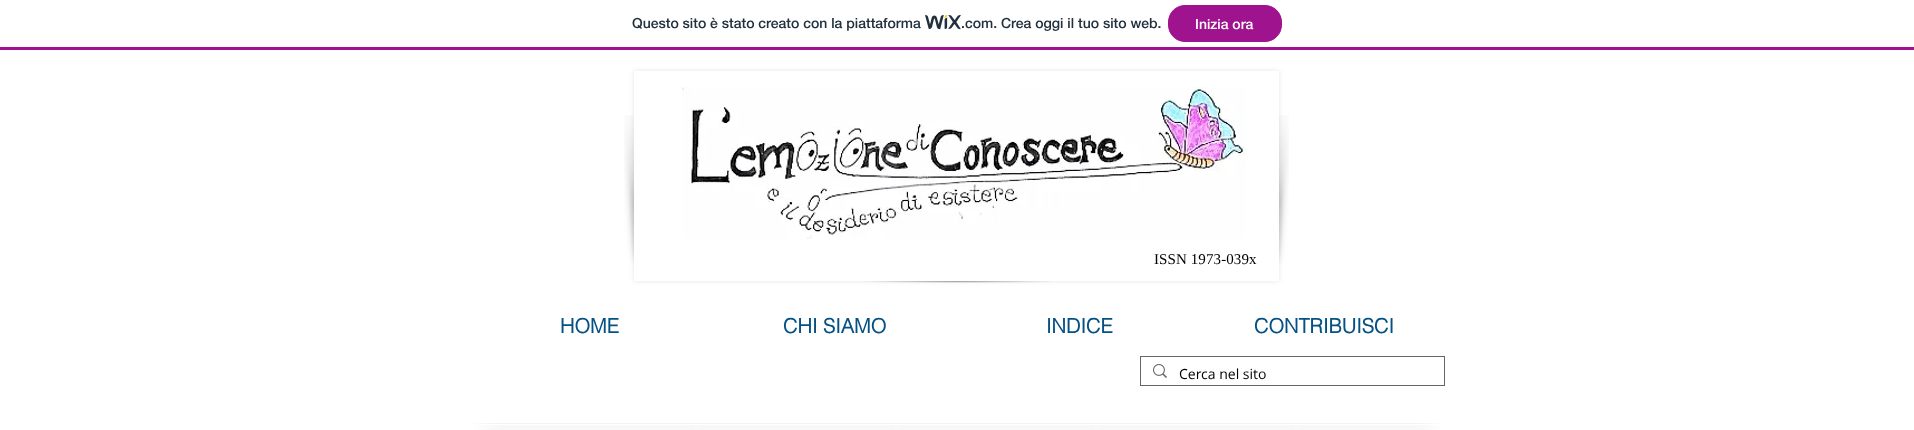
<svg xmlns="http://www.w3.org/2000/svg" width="1914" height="430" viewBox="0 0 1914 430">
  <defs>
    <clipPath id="clip1"><path d="M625 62H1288V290H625ZM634 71H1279V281H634Z" clip-rule="evenodd"/></clipPath>
    <filter id="blur1" x="-50%" y="-200%" width="200%" height="500%"><feGaussianBlur stdDeviation="2.5"/></filter>
  </defs>
  <rect width="100%" height="100%" fill="#ffffff"/>
  <rect x="0" y="47" width="1914" height="3" fill="#a0138e"/>
  <text x="632" y="28" font-family="'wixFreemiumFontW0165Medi'" font-size="14" font-weight="500" fill="#20303c">Questo sito è stato creato con la piattaforma</text>
  <image x="925" y="15" width="36" height="15" href="img1.png"/>
  <text x="961" y="28" font-family="'wixFreemiumFontW0165Medi'" font-size="14" font-weight="500" fill="#20303c">.com. Crea oggi il tuo sito web.</text>
  <rect x="1168.5" y="5.5" width="113" height="36" rx="16.5" fill="#a0138e" stroke="#a0138e"/>
  <text x="1195" y="29" font-family="'wixFreemiumFontW0165Medi'" font-size="14" font-weight="500" fill="#ffffff">Inizia ora</text>
  <g clip-path="url(#clip1)">
    <rect x="634" y="71" width="645" height="210" fill="#000000" fill-opacity="0.1" filter="url(#blur1)"/>
  </g>
  <image x="682" y="87" width="564" height="152" href="img2.png"/>
  <image x="863" y="281" width="188" height="2" href="img3.png"/>
  <image x="624" y="115" width="10" height="148" href="img4.png"/>
  <image x="1279" y="115" width="10" height="148" href="img5.png"/>
  <text x="1154" y="264" font-family="Liberation Serif" font-size="15" letter-spacing="0.1" fill="#000000">ISSN 1973-039x</text>
  <text x="560" y="333" font-family="helvetica" font-size="20" font-weight="bold" fill="#045184">HOME</text>
  <text x="783" y="333" font-family="helvetica" font-size="20" font-weight="bold" fill="#045184">CHI SIAMO</text>
  <text x="1046" y="333" font-family="helvetica" font-size="20" font-weight="bold" fill="#045184">INDICE</text>
  <text x="1254" y="333" font-family="helvetica" font-size="20" font-weight="bold" fill="#045184">CONTRIBUISCI</text>
  <rect x="1140.5" y="356.5" width="304" height="29" fill="none" stroke="#666666"/>
  <image x="1153" y="364" width="14" height="14" href="img6.png"/>
  <text x="1179" y="379" font-family="Open Sans" font-size="14" fill="#000000">Cerca nel sito</text>
  <image x="473" y="423" width="24" height="7" href="img7.png"/>
  <image x="497" y="423" width="920" height="7" href="img8.png"/>
  <image x="1417" y="423" width="24" height="7" href="img9.png"/>
</svg>
